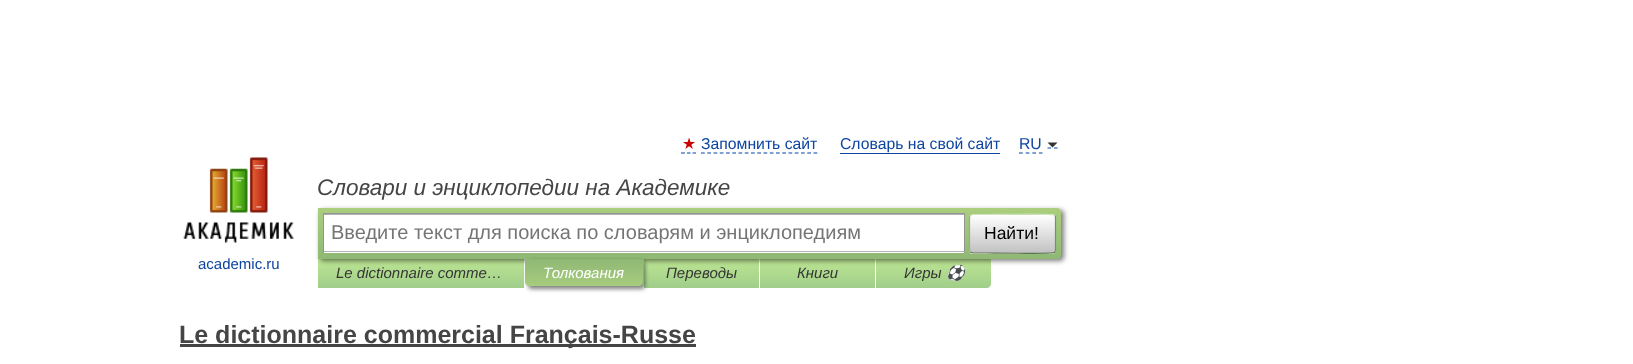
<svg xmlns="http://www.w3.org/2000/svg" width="1633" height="364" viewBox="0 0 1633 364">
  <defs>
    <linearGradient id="g1" gradientUnits="userSpaceOnUse" x1="421" y1="259" x2="421" y2="288"><stop offset="0" stop-color="#bde693"/><stop offset="1" stop-color="#a0ce8a"/></linearGradient>
    <linearGradient id="g2" gradientUnits="userSpaceOnUse" x1="701" y1="259" x2="701" y2="288"><stop offset="0" stop-color="#bde693"/><stop offset="1" stop-color="#a0ce8a"/></linearGradient>
    <linearGradient id="g3" gradientUnits="userSpaceOnUse" x1="818" y1="259" x2="818" y2="288"><stop offset="0" stop-color="#bde693"/><stop offset="1" stop-color="#a0ce8a"/></linearGradient>
    <linearGradient id="g4" gradientUnits="userSpaceOnUse" x1="934" y1="259" x2="934" y2="288"><stop offset="0" stop-color="#bde693"/><stop offset="1" stop-color="#a0ce8a"/></linearGradient>
    <filter id="blur1" x="-50%" y="-200%" width="200%" height="500%"><feGaussianBlur stdDeviation="2.5"/></filter>
    <linearGradient id="g5" gradientUnits="userSpaceOnUse" x1="689" y1="207" x2="689" y2="259"><stop offset="0" stop-color="#abcf7e"/><stop offset="1" stop-color="#8eb874"/></linearGradient>
    <clipPath id="clip1"><rect x="969" y="214" width="87" height="40" rx="4"/></clipPath>
    <linearGradient id="g6" gradientUnits="userSpaceOnUse" x1="1013" y1="215" x2="1013" y2="253"><stop offset="0" stop-color="#ffffff"/><stop offset="1" stop-color="#c1c1c1"/></linearGradient>
    <linearGradient id="g7" gradientUnits="userSpaceOnUse" x1="1013" y1="253" x2="1013" y2="290"><stop offset="0" stop-color="#ffffff"/><stop offset="1" stop-color="#c1c1c1"/></linearGradient>
    <filter id="blur2" x="-50%" y="-200%" width="200%" height="500%"><feGaussianBlur stdDeviation="2"/></filter>
    <linearGradient id="g8" gradientUnits="userSpaceOnUse" x1="584" y1="259" x2="584" y2="286"><stop offset="0" stop-color="#8fb875"/><stop offset="1" stop-color="#a7cc7d"/></linearGradient>
  </defs>
  <rect width="100%" height="100%" fill="#ffffff"/>
  <text x="682" y="149" font-family="DejaVu Sans" font-size="15.75" fill="#cc0000">★</text>
  <path d="M681 153H685M687 153H690.5M692.5 153H696" fill="none" stroke="#0044aa" stroke-width="1.2"/>
  <text x="701" y="149" font-family="Liberation Sans" font-size="15.75" fill="#0d44a0">Запомнить сайт</text>
  <path d="M701 153H817.5" fill="none" stroke="#0044aa" stroke-width="1.2" stroke-dasharray="3.75 2.5"/>
  <text x="840" y="149" font-family="Liberation Sans" font-size="15.75" fill="#0d44a0">Словарь на свой сайт</text>
  <rect x="840" y="153" width="160" height="1" fill="#0d44a0"/>
  <path d="M1019 153H1042.5" fill="none" stroke="#0044aa" stroke-width="1.2" stroke-dasharray="3.75 2.91"/>
  <path d="M1047.5 148H1051M1054 148H1057.5" fill="none" stroke="#0044aa" stroke-width="1.2"/>
  <text x="1019" y="149" font-family="Liberation Sans" font-size="15.75" fill="#0d44a0">RU</text>
  <path d="M1047.5 142.5H1057.5L1052.5 147.5Z" fill="#333333"/>
  <text x="317" y="195" font-family="Liberation Sans" font-size="22.5" font-style="italic" fill="#454545">Словари и энциклопедии на Академике</text>
  <rect x="318" y="259" width="206" height="29" fill="url(#g1)"/>
  <rect x="644" y="259" width="115" height="29" fill="url(#g2)"/>
  <rect x="760" y="259" width="115" height="29" fill="url(#g3)"/>
  <path d="M876 259H991V284C991 286 989 288 987 288H876Z" fill="url(#g4)"/>
  <rect x="320" y="210" width="744" height="51" rx="4" fill="#000000" fill-opacity="0.5" filter="url(#blur1)"/>
  <path d="M318 208H1057C1059 208 1061 210 1061 212V255C1061 257 1059 259 1057 259H318Z" fill="url(#g5)"/>
  <rect x="324" y="215" width="640" height="38" fill="#ffffff"/>
  <rect x="324" y="214" width="640" height="1" fill="#b3b3b3"/>
  <rect x="323" y="213" width="642" height="1" fill="#949494"/>
  <rect x="964" y="213" width="1" height="40" fill="#949494"/>
  <rect x="323" y="251" width="642" height="1" fill="#b4b4b4"/>
  <rect x="323" y="213" width="1" height="40" fill="#949494"/>
  <text x="331" y="239" font-family="Liberation Sans" font-size="20" fill="#757575">Введите текст для поиска по словарям и энциклопедиям</text>
  <g clip-path="url(#clip1)">
    <rect x="969" y="215" width="87" height="38" fill="url(#g6)"/>
    <rect x="969" y="253" width="87" height="1" fill="url(#g7)"/>
  </g>
  <path d="M970.5 215.5L972.5 214.5H986C993.5 214.5 1052.5 213.5 1054.5 215V215.5" fill="none" stroke="#d1e4bc" stroke-width="1.2"/>
  <path d="M1054.5 215.5C1055.5 216 1055.5 216.5 1055.5 217.5V250C1055.5 251 1055.5 251.5 1054.5 252" fill="none" stroke="#7a8e69" stroke-width="1.2"/>
  <path d="M1054.5 252V252.5C1052.5 254 993.5 253 986 253H972.5L970.5 252" fill="none" stroke="#5d7250" stroke-width="1.2"/>
  <path d="M970.5 252C969.5 251.5 969.5 251 969.5 250V217.5C969.5 216.5 969.5 216 970.5 215.5" fill="none" stroke="#9aae89" stroke-width="1.2"/>
  <text x="984" y="239" font-family="Liberation Sans" font-size="17.5" fill="#000000">Найти!</text>
  <image x="183" y="157" width="111" height="86" href="img1.png"/>
  <text x="198" y="269" font-family="Liberation Sans" font-size="15" fill="#0d44a0">academic.ru</text>
  <text x="336" y="278" font-family="Liberation Sans" font-size="15" font-style="italic" fill="#353535">Le dictionnaire comme…</text>
  <rect x="528" y="261" width="117" height="28" rx="4" fill="#000000" fill-opacity="0.5" filter="url(#blur2)"/>
  <path d="M525 259H643V282C643 284 641 286 639 286H529C527 286 525 284 525 282Z" fill="url(#g8)"/>
  <text x="543" y="278" font-family="Liberation Sans" font-size="15" font-style="italic" fill="#ffffff">Толкования</text>
  <text x="666" y="278" font-family="Liberation Sans" font-size="15" font-style="italic" fill="#353535">Переводы</text>
  <text x="797" y="278" font-family="Liberation Sans" font-size="15" font-style="italic" fill="#353535">Книги</text>
  <text x="904" y="278" font-family="Liberation Sans" font-size="15" font-style="italic" fill="#353535">Игры</text>
  <text x="946" y="278" font-family="Noto Color Emoji" font-size="15" font-style="italic" fill="#353535">⚽</text>
  <rect x="180" y="344" width="516" height="3" fill="#454545"/>
  <text x="179" y="343" font-family="Liberation Sans" font-size="25" font-weight="bold" fill="#454545">Le dictionnaire commercial Français-Russe</text>
</svg>
